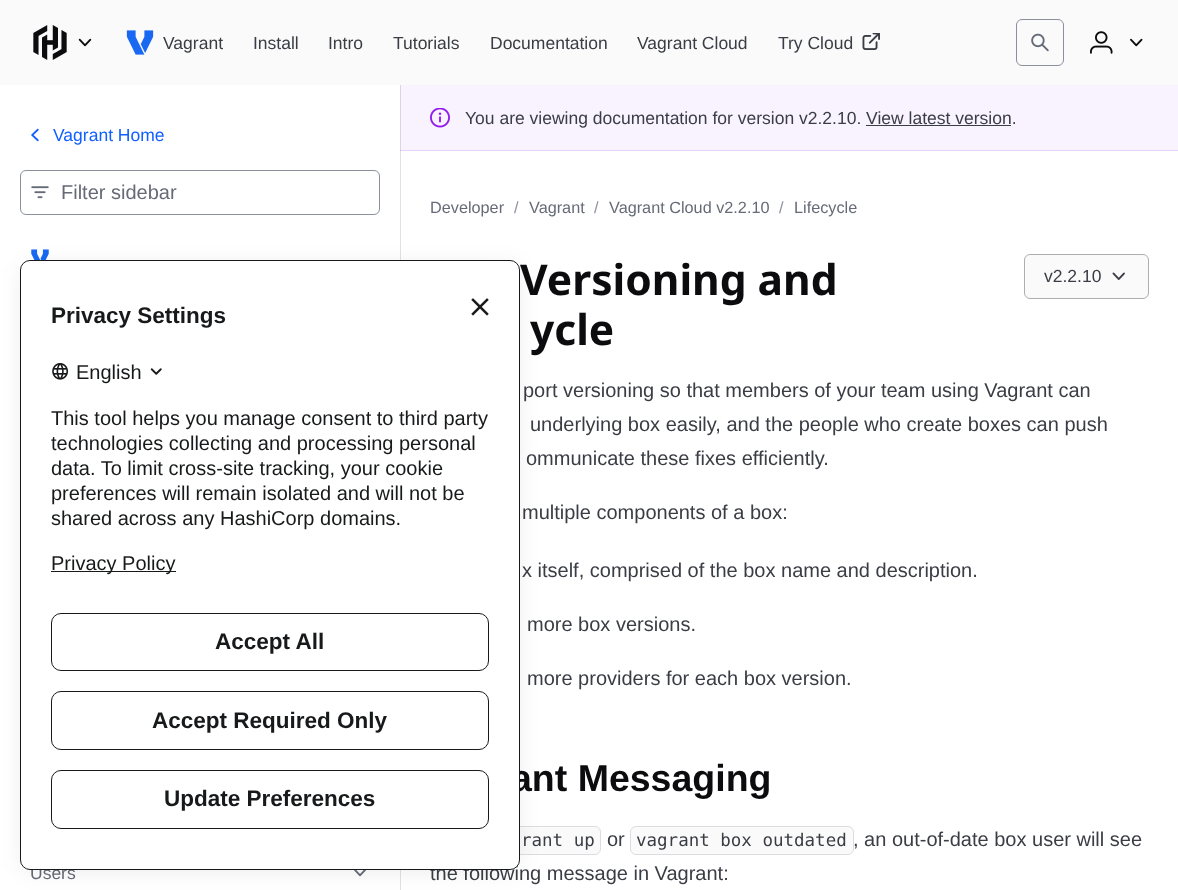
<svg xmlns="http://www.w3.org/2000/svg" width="1178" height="890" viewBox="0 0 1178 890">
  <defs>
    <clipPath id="clip1"><path d="M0 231H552V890H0ZM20 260H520V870H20Z" clip-rule="evenodd"/></clipPath>
    <filter id="blur1" x="-50%" y="-200%" width="200%" height="500%"><feGaussianBlur stdDeviation="12"/></filter>
  </defs>
  <rect width="100%" height="100%" fill="#ffffff"/>
  <rect x="400" y="85" width="778" height="65" fill="#f9f2ff"/>
  <rect x="400" y="150" width="778" height="1" fill="#ead2fe"/>
  <rect x="-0.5" y="84.5" width="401" height="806" fill="none" stroke="#656a76" stroke-opacity="0.2"/>
  <rect x="0" y="0" width="1178" height="85" fill="#fafafa"/>
  <image x="33" y="25" width="34" height="35" href="img1.png"/>
  <image x="78" y="38" width="14" height="9" href="img2.png"/>
  <image x="126" y="30" width="28" height="25" href="img3.png"/>
  <text x="163" y="49" font-family="Liberation Sans" font-size="17.5" fill="#3b3d45">Vagrant</text>
  <text x="253" y="49" font-family="Liberation Sans" font-size="17.5" fill="#3b3d45">Install</text>
  <text x="328" y="49" font-family="Liberation Sans" font-size="17.5" fill="#3b3d45">Intro</text>
  <text x="393" y="49" font-family="Liberation Sans" font-size="17.5" fill="#3b3d45">Tutorials</text>
  <text x="490" y="49" font-family="Liberation Sans" font-size="17.5" fill="#3b3d45">Documentation</text>
  <text x="637" y="49" font-family="Liberation Sans" font-size="17.5" fill="#3b3d45">Vagrant Cloud</text>
  <text x="778" y="49" font-family="Liberation Sans" font-size="17.5" fill="#3b3d45">Try Cloud</text>
  <image x="862" y="33" width="18" height="17" href="img4.png"/>
  <rect x="1016.5" y="19.5" width="47" height="46" rx="5.5" fill="none" stroke="#8c909c"/>
  <image x="1031" y="33" width="18" height="19" href="img5.png"/>
  <image x="1090" y="31" width="23" height="23" href="img6.png"/>
  <image x="1130" y="38" width="13" height="9" href="img7.png"/>
  <image x="31" y="128" width="8" height="14" href="img8.png"/>
  <text x="53" y="141" font-family="Liberation Sans" font-size="17.5" fill="#1060ff">Vagrant Home</text>
  <image x="31" y="186" width="18" height="13" href="img9.png"/>
  <rect x="20.5" y="170.5" width="359" height="44" rx="5.5" fill="none" stroke="#8c909c"/>
  <text x="61" y="199" font-family="Liberation Sans" font-size="20" fill="#656a76">Filter sidebar</text>
  <image x="31" y="249" width="18" height="11" href="img10.png"/>
  <text x="30" y="879" font-family="Liberation Sans" font-size="17.5" fill="#656a76">Users</text>
  <image x="354" y="870" width="12" height="7" href="img11.png"/>
  <image x="430" y="108" width="20" height="20" href="img12.png"/>
  <text x="465" y="124" font-family="Liberation Sans" font-size="17.5" fill="#3b3d45">You are viewing documentation for version v2.2.10. View latest version.</text>
  <rect x="866" y="125" width="145" height="1" fill="#3b3d45"/>
  <text x="430" y="213" font-family="Liberation Sans" font-size="16.25" fill="#656a76">Developer</text>
  <text x="514" y="213" font-family="Liberation Sans" font-size="16.25" fill="#8c909c">/</text>
  <text x="529" y="213" font-family="Liberation Sans" font-size="16.25" fill="#656a76">Vagrant</text>
  <text x="594" y="213" font-family="Liberation Sans" font-size="16.25" fill="#8c909c">/</text>
  <text x="609" y="213" font-family="Liberation Sans" font-size="16.25" fill="#656a76">Vagrant Cloud v2.2.10</text>
  <text x="779" y="213" font-family="Liberation Sans" font-size="16.25" fill="#8c909c">/</text>
  <text x="794" y="213" font-family="Liberation Sans" font-size="16.25" fill="#656a76">Lifecycle</text>
  <text x="520" y="295" font-family="Noto Sans" font-size="42.5" font-weight="bold" fill="#0c0c0e">Versioning and</text>
  <text x="530" y="345" font-family="Noto Sans" font-size="42.5" font-weight="bold" fill="#0c0c0e">ycle</text>
  <rect x="1024.5" y="254.5" width="124" height="44" rx="5.5" fill="#fafafa" stroke="#aeaeb2"/>
  <text x="1044" y="282" font-family="Liberation Sans" font-size="17.5" fill="#3b3d45">v2.2.10</text>
  <image x="1112" y="272" width="13" height="8" href="img13.png"/>
  <text x="523" y="397" font-family="Liberation Sans" font-size="20" fill="#3b3d45">port versioning so that members of your team using Vagrant can</text>
  <text x="530" y="431" font-family="Liberation Sans" font-size="20" fill="#3b3d45">underlying box easily, and the people who create boxes can push</text>
  <text x="526" y="465" font-family="Liberation Sans" font-size="20" fill="#3b3d45">ommunicate these fixes efficiently.</text>
  <text x="522" y="519" font-family="Liberation Sans" font-size="20" fill="#3b3d45">multiple components of a box:</text>
  <text x="522" y="577" font-family="Liberation Sans" font-size="20" fill="#3b3d45">x itself, comprised of the box name and description.</text>
  <text x="527" y="631" font-family="Liberation Sans" font-size="20" fill="#3b3d45">more box versions.</text>
  <text x="527" y="685" font-family="Liberation Sans" font-size="20" fill="#3b3d45">more providers for each box version.</text>
  <text x="511" y="791" font-family="Liberation Sans" font-size="37.5" font-weight="bold" fill="#0c0c0e">ant Messaging</text>
  <rect x="484.5" y="826.5" width="116" height="28" rx="5.5" fill="#fafafa" stroke="#dcdde0"/>
  <text x="521" y="846" font-family="DejaVu Sans Mono" font-size="17.5" fill="#3b3d45">rant up</text>
  <text x="607" y="846" font-family="Liberation Sans" font-size="20" fill="#3b3d45">or</text>
  <rect x="630.5" y="826.5" width="223" height="28" rx="5.5" fill="#fafafa" stroke="#dcdde0"/>
  <text x="636" y="846" font-family="DejaVu Sans Mono" font-size="17.5" fill="#3b3d45">vagrant box outdated</text>
  <text x="853" y="846" font-family="Liberation Sans" font-size="20" fill="#3b3d45">, an out-of-date box user will see</text>
  <text x="430" y="880" font-family="Liberation Sans" font-size="20" fill="#3b3d45">the following message in Vagrant:</text>
  <g clip-path="url(#clip1)">
    <rect x="25" y="268" width="490" height="600" fill="#01013f" fill-opacity="0.1" filter="url(#blur1)"/>
  </g>
  <rect x="20.5" y="260.5" width="499" height="609" rx="9.5" fill="#ffffff" stroke="#17191a"/>
  <text x="51" y="323" font-family="Liberation Sans" font-size="22.5" font-weight="bold" fill="#17191a">Privacy Settings</text>
  <image x="471" y="298" width="18" height="18" href="img14.png"/>
  <image x="52" y="363" width="17" height="17" href="img15.png"/>
  <text x="76" y="379" font-family="Liberation Sans" font-size="20" fill="#17191a">English</text>
  <image x="150" y="368" width="12" height="7" href="img16.png"/>
  <text x="51" y="425" font-family="Liberation Sans" font-size="20" fill="#17191a">This tool helps you manage consent to third party</text>
  <text x="51" y="450" font-family="Liberation Sans" font-size="20" fill="#17191a">technologies collecting and processing personal</text>
  <text x="51" y="475" font-family="Liberation Sans" font-size="20" fill="#17191a">data. To limit cross-site tracking, your cookie</text>
  <text x="51" y="500" font-family="Liberation Sans" font-size="20" fill="#17191a">preferences will remain isolated and will not be</text>
  <text x="51" y="525" font-family="Liberation Sans" font-size="20" fill="#17191a">shared across any HashiCorp domains.</text>
  <rect x="51" y="571" width="125" height="1" fill="#17191a"/>
  <text x="51" y="570" font-family="Liberation Sans" font-size="20" fill="#17191a">Privacy Policy</text>
  <rect x="51.5" y="613.5" width="437" height="57" rx="9.5" fill="none" stroke="#17191a"/>
  <text x="215" y="649" font-family="Liberation Sans" font-size="22.5" font-weight="bold" fill="#17191a">Accept All</text>
  <rect x="51.5" y="691.5" width="437" height="58" rx="9.5" fill="none" stroke="#17191a"/>
  <text x="152" y="728" font-family="Liberation Sans" font-size="22.5" font-weight="bold" fill="#17191a">Accept Required Only</text>
  <rect x="51.5" y="770.5" width="437" height="58" rx="9.5" fill="none" stroke="#17191a"/>
  <text x="164" y="806" font-family="Liberation Sans" font-size="22.5" font-weight="bold" fill="#17191a">Update Preferences</text>
</svg>
